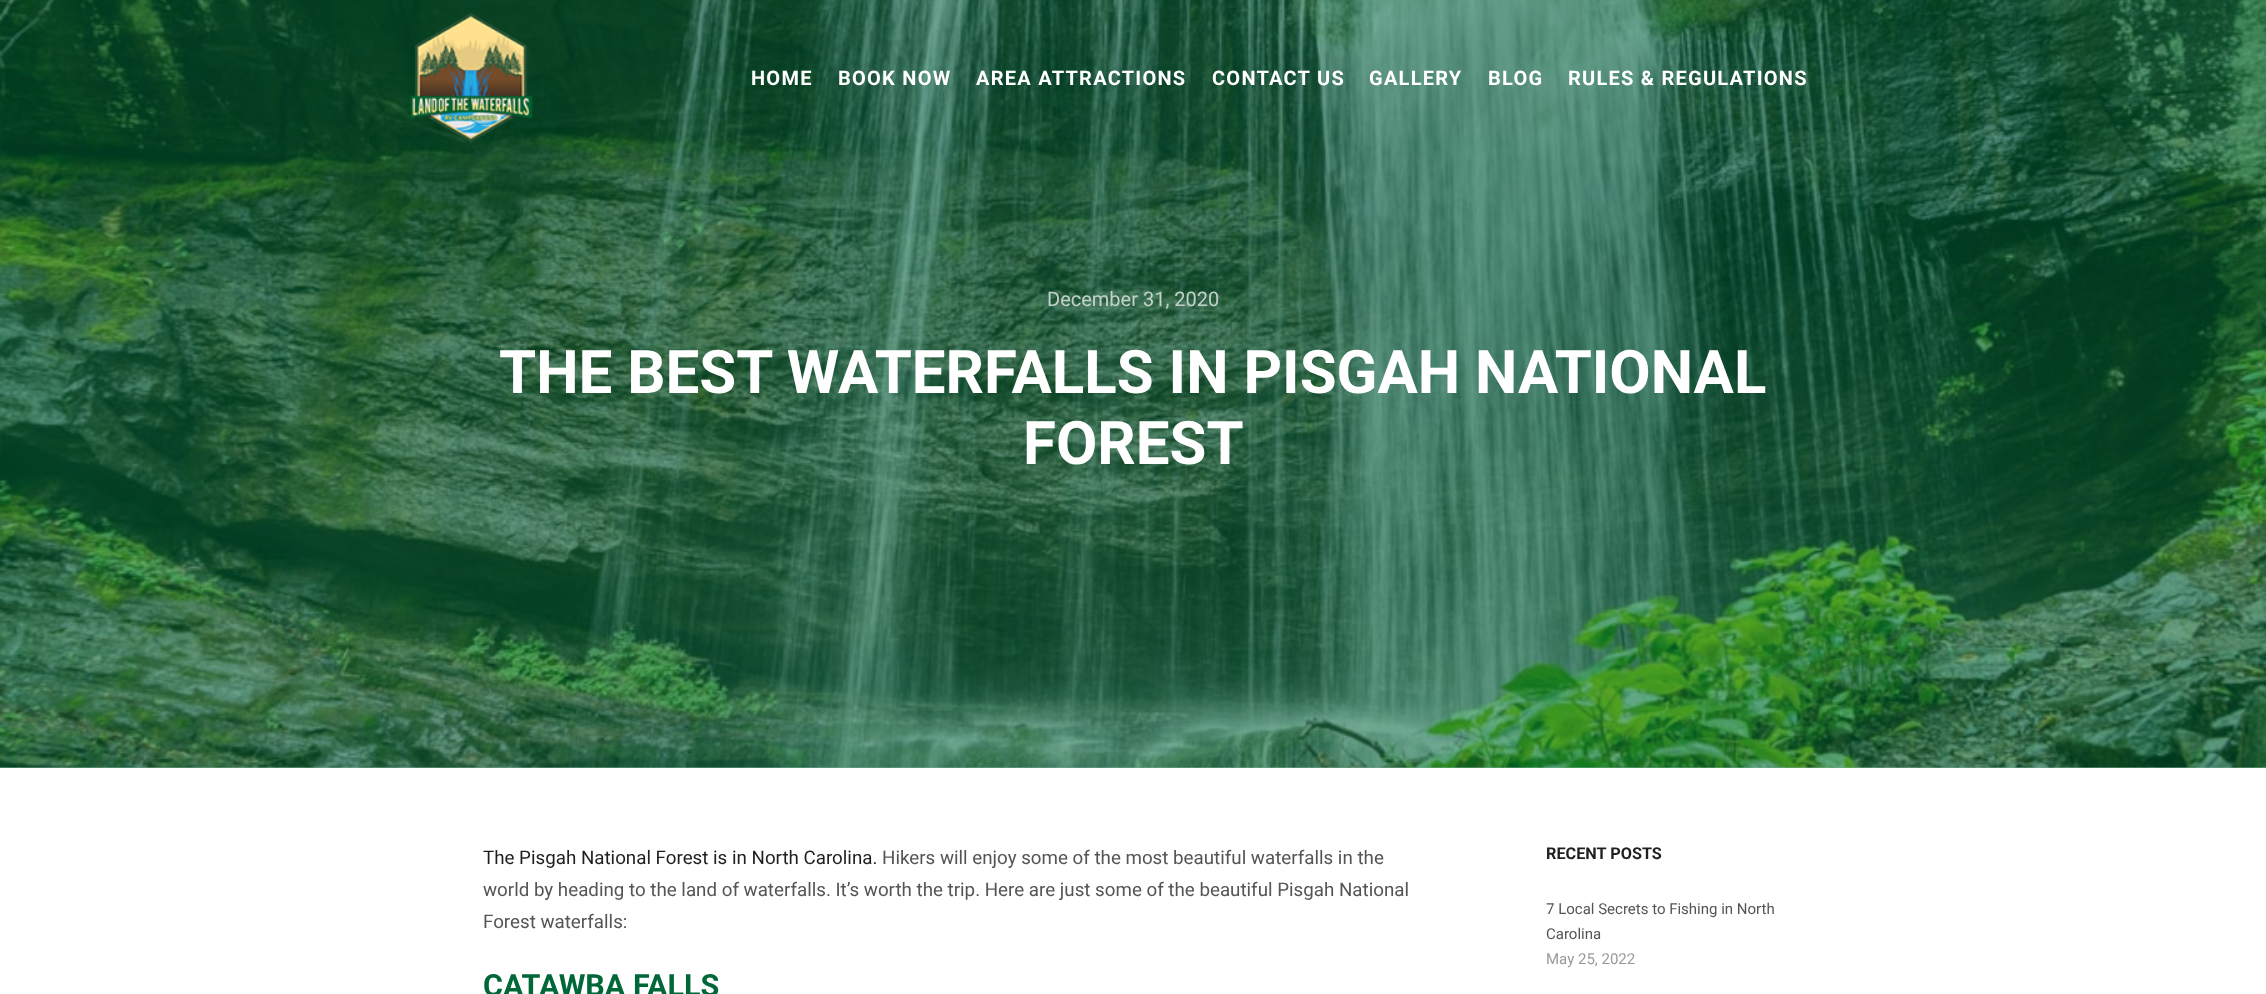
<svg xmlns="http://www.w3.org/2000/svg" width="2266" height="994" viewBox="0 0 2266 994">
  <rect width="100%" height="100%" fill="#ffffff"/>
  <rect x="0" y="767" width="2266" height="1" fill="#75ad94"/>
  <image x="0" y="0" width="2266" height="768" href="img2.png"/>
  <image x="409" y="12" width="124" height="132" href="img1.png"/>
  <text x="751" y="85" font-family="Roboto" font-size="20" font-weight="bold" letter-spacing="1.25" fill="#ffffff">HOME</text>
  <text x="838" y="85" font-family="Roboto" font-size="20" font-weight="bold" letter-spacing="1.25" fill="#ffffff">BOOK NOW</text>
  <text x="976" y="85" font-family="Roboto" font-size="20" font-weight="bold" letter-spacing="1.25" fill="#ffffff">AREA ATTRACTIONS</text>
  <text x="1212" y="85" font-family="Roboto" font-size="20" font-weight="bold" letter-spacing="1.25" fill="#ffffff">CONTACT US</text>
  <text x="1369" y="85" font-family="Roboto" font-size="20" font-weight="bold" letter-spacing="1.25" fill="#ffffff">GALLERY</text>
  <text x="1488" y="85" font-family="Roboto" font-size="20" font-weight="bold" letter-spacing="1.25" fill="#ffffff">BLOG</text>
  <text x="1568" y="85" font-family="Roboto" font-size="20" font-weight="bold" letter-spacing="1.25" fill="#ffffff">RULES &amp; REGULATIONS</text>
  <text x="1047" y="306" font-family="Roboto" font-size="20" fill="#c2d2c9">December 31, 2020</text>
  <text x="499" y="393" font-family="Roboto" font-size="60" font-weight="bold" fill="#ffffff">THE BEST WATERFALLS IN PISGAH NATIONAL</text>
  <text x="1023" y="464" font-family="Roboto" font-size="60" font-weight="bold" fill="#ffffff">FOREST</text>
  <text x="483" y="864" font-family="Roboto" font-size="18.75" fill="#1f1f1f">The Pisgah National Forest is in North Carolina.</text>
  <text x="882" y="864" font-family="Roboto" font-size="18.75" fill="#555555">Hikers will enjoy some of the most beautiful waterfalls in the</text>
  <text x="483" y="896" font-family="Roboto" font-size="18.75" fill="#555555">world by heading to the land of waterfalls. It’s worth the trip. Here are just some of the beautiful Pisgah National</text>
  <text x="483" y="928" font-family="Roboto" font-size="18.75" fill="#555555">Forest waterfalls:</text>
  <text x="483" y="996" font-family="Roboto" font-size="30.5" font-weight="bold" fill="#006838">CATAWBA FALLS</text>
  <text x="1546" y="859" font-family="Roboto" font-size="16.25" font-weight="bold" fill="#1f1f1f">RECENT POSTS</text>
  <text x="1546" y="914" font-family="Roboto" font-size="15" fill="#555555">7 Local Secrets to Fishing in North</text>
  <text x="1546" y="939" font-family="Roboto" font-size="15" fill="#555555">Carolina</text>
  <text x="1546" y="964" font-family="Roboto" font-size="15" fill="#999999">May 25, 2022</text>
</svg>
